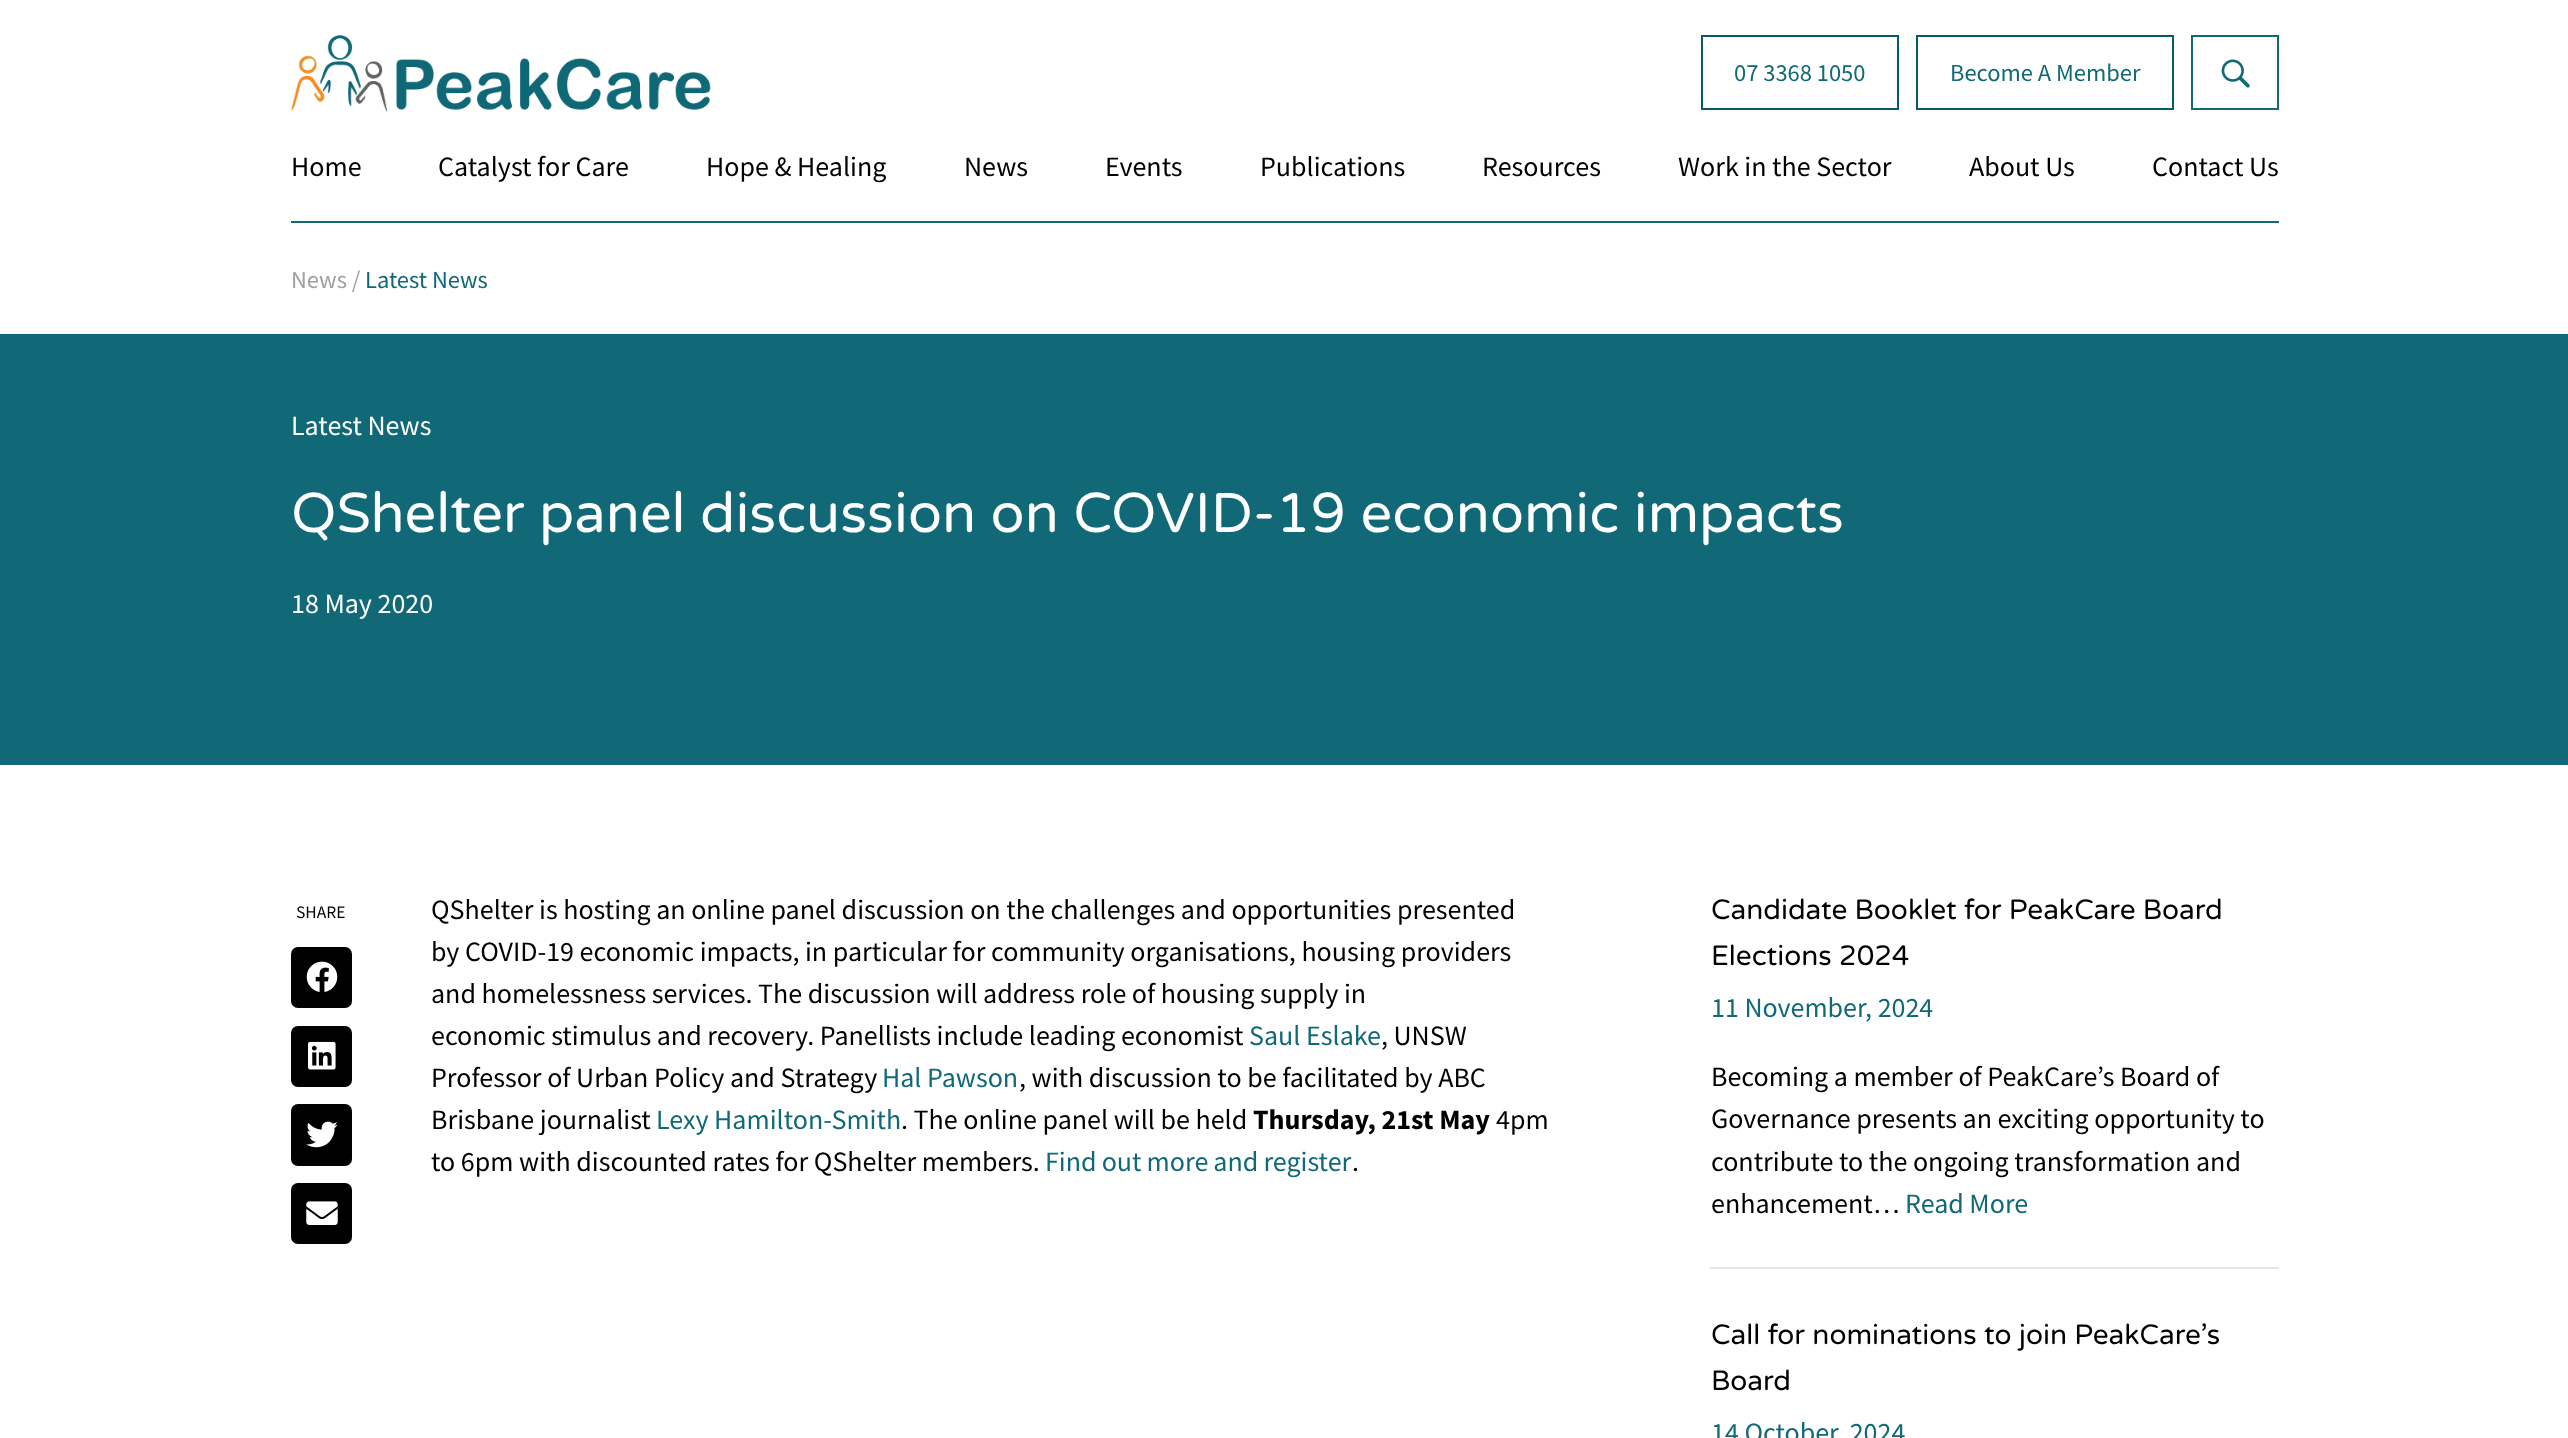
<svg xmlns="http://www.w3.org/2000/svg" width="2568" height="1438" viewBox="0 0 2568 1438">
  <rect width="100%" height="100%" fill="#ffffff"/>
  <image x="291" y="35" width="420" height="77" href="img1.png"/>
  <rect x="1702" y="36" width="196" height="73" fill="none" stroke="#055d6b" stroke-width="2"/>
  <text x="1734" y="81" font-family="Source Sans Pro" font-size="24.5" fill="#116977">07 3368 1050</text>
  <rect x="1917" y="36" width="256" height="73" fill="none" stroke="#055d6b" stroke-width="2"/>
  <text x="1950" y="81" font-family="Source Sans Pro" font-size="24.5" fill="#116977">Become A Member</text>
  <rect x="2192" y="36" width="86" height="73" fill="none" stroke="#116977" stroke-width="2"/>
  <image x="2221" y="59" width="29" height="29" href="img2.png"/>
  <text x="291" y="176" font-family="Source Sans Pro" font-size="28" fill="#000000">Home</text>
  <text x="438" y="176" font-family="Source Sans Pro" font-size="28" fill="#000000">Catalyst for Care</text>
  <text x="706" y="176" font-family="Source Sans Pro" font-size="28" fill="#000000">Hope &amp; Healing</text>
  <text x="964" y="176" font-family="Source Sans Pro" font-size="28" fill="#000000">News</text>
  <text x="1105" y="176" font-family="Source Sans Pro" font-size="28" fill="#000000">Events</text>
  <text x="1260" y="176" font-family="Source Sans Pro" font-size="28" fill="#000000">Publications</text>
  <text x="1482" y="176" font-family="Source Sans Pro" font-size="28" fill="#000000">Resources</text>
  <text x="1678" y="176" font-family="Source Sans Pro" font-size="28" fill="#000000">Work in the Sector</text>
  <text x="1969" y="176" font-family="Source Sans Pro" font-size="28" fill="#000000">About Us</text>
  <text x="2152" y="176" font-family="Source Sans Pro" font-size="28" fill="#000000">Contact Us</text>
  <rect x="291" y="221" width="1988" height="2" fill="#116977"/>
  <text x="291" y="288" font-family="Source Sans Pro" font-size="24.5" fill="#a0a0a0">News /</text>
  <text x="365" y="288" font-family="Source Sans Pro" font-size="24.5" fill="#116977">Latest News</text>
  <rect x="0" y="334" width="2568" height="431" fill="#116977"/>
  <text x="291" y="435" font-family="Source Sans Pro" font-size="28" fill="#ffffff">Latest News</text>
  <text x="291" y="532" font-family="Varela Round" font-size="56" fill="#ffffff">QShelter panel discussion on COVID-19 economic impacts</text>
  <text x="291" y="613" font-family="Source Sans Pro" font-size="28" fill="#ffffff">18 May 2020</text>
  <text x="296" y="918" font-family="Source Sans Pro" font-size="17.5" fill="#000000">SHARE</text>
  <rect x="291" y="947" width="61" height="61" rx="7" fill="#000000"/>
  <image x="306" y="961" width="32" height="31" href="img3.png"/>
  <rect x="291" y="1026" width="61" height="61" rx="7" fill="#000000"/>
  <image x="308" y="1041" width="28" height="29" href="img4.png"/>
  <rect x="291" y="1104" width="61" height="62" rx="7" fill="#000000"/>
  <image x="306" y="1121" width="32" height="27" href="img5.png"/>
  <rect x="291" y="1183" width="61" height="61" rx="7" fill="#000000"/>
  <image x="306" y="1201" width="32" height="24" href="img6.png"/>
  <text x="431" y="919" font-family="Source Sans Pro" font-size="28" fill="#000000">QShelter is hosting an online panel discussion on the challenges and opportunities presented</text>
  <text x="431" y="961" font-family="Source Sans Pro" font-size="28" fill="#000000">by COVID-19 economic impacts, in particular for community organisations, housing providers</text>
  <text x="431" y="1003" font-family="Source Sans Pro" font-size="28" fill="#000000">and homelessness services. The discussion will address role of housing supply in</text>
  <text x="431" y="1045" font-family="Source Sans Pro" font-size="28" fill="#000000">economic stimulus and recovery. Panellists include leading economist</text>
  <text x="1249" y="1045" font-family="Source Sans Pro" font-size="28" fill="#116977">Saul Eslake</text>
  <text x="1381" y="1045" font-family="Source Sans Pro" font-size="28" fill="#000000">, UNSW</text>
  <text x="431" y="1087" font-family="Source Sans Pro" font-size="28" fill="#000000">Professor of Urban Policy and Strategy</text>
  <text x="882" y="1087" font-family="Source Sans Pro" font-size="28" fill="#116977">Hal Pawson</text>
  <text x="1019" y="1087" font-family="Source Sans Pro" font-size="28" fill="#000000">, with discussion to be facilitated by ABC</text>
  <text x="431" y="1129" font-family="Source Sans Pro" font-size="28" fill="#000000">Brisbane journalist</text>
  <text x="656" y="1129" font-family="Source Sans Pro" font-size="28" fill="#116977">Lexy Hamilton-Smith</text>
  <text x="901" y="1129" font-family="Source Sans Pro" font-size="28" fill="#000000">. The online panel will be held</text>
  <text x="1253" y="1129" font-family="Source Sans Pro" font-size="28" font-weight="bold" fill="#000000">Thursday, 21st May</text>
  <text x="1496" y="1129" font-family="Source Sans Pro" font-size="28" fill="#000000">4pm</text>
  <text x="431" y="1171" font-family="Source Sans Pro" font-size="28" fill="#000000">to 6pm with discounted rates for QShelter members.</text>
  <text x="1045" y="1171" word-spacing="-0.5" font-family="Source Sans Pro" font-size="28" fill="#116977">Find out more and register</text>
  <text x="1352" y="1171" font-family="Source Sans Pro" font-size="28" fill="#000000">.</text>
  <rect x="1710" y="1267" width="569" height="2" fill="#e6e6e6"/>
  <text x="1711" y="919" font-family="Varela Round" font-size="28" fill="#000000">Candidate Booklet for PeakCare Board</text>
  <text x="1711" y="965" font-family="Varela Round" font-size="28" fill="#000000">Elections 2024</text>
  <text x="1711" y="1017" font-family="Source Sans Pro" font-size="28" fill="#116977">11 November, 2024</text>
  <text x="1711" y="1086" font-family="Source Sans Pro" font-size="28" fill="#000000">Becoming a member of PeakCare’s Board of</text>
  <text x="1711" y="1128" font-family="Source Sans Pro" font-size="28" fill="#000000">Governance presents an exciting opportunity to</text>
  <text x="1711" y="1171" font-family="Source Sans Pro" font-size="28" fill="#000000">contribute to the ongoing transformation and</text>
  <text x="1711" y="1213" font-family="Source Sans Pro" font-size="28" fill="#000000">enhancement…</text>
  <text x="1905" y="1213" font-family="Source Sans Pro" font-size="28" fill="#116977">Read More</text>
  <text x="1711" y="1344" font-family="Varela Round" font-size="28" fill="#000000">Call for nominations to join PeakCare’s</text>
  <text x="1711" y="1390" font-family="Varela Round" font-size="28" fill="#000000">Board</text>
  <text x="1711" y="1442" font-family="Source Sans Pro" font-size="28" fill="#116977">14 October, 2024</text>
</svg>
